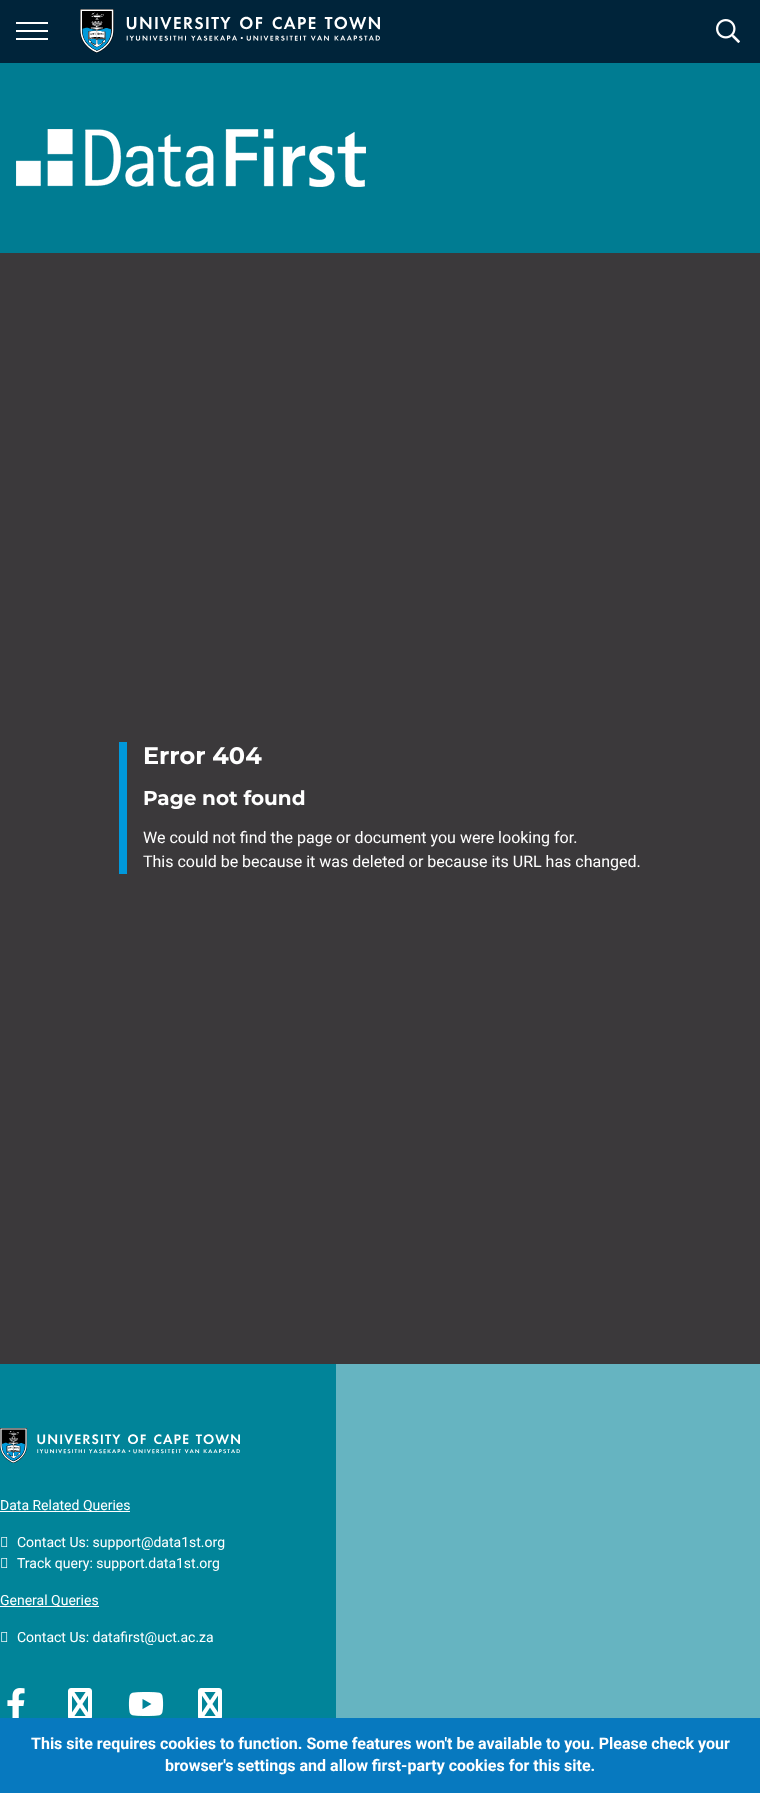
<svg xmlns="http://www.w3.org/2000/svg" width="760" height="1793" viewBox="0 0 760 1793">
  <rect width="100%" height="100%" fill="#3b393b"/>
  <rect x="0" y="0" width="760" height="63" fill="#00243a"/>
  <rect x="16" y="22" width="32" height="2" fill="#ffffff"/>
  <rect x="16" y="30" width="32" height="2" fill="#ffffff"/>
  <rect x="16" y="38" width="32" height="2" fill="#ffffff"/>
  <image x="80" y="9" width="300" height="44" href="img1.png"/>
  <image x="716" y="19" width="24" height="24" href="img2.png"/>
  <rect x="0" y="63" width="760" height="190" fill="#007c92"/>
  <image x="16" y="129" width="350" height="58" href="img3.png"/>
  <rect x="119" y="742" width="8" height="132" fill="#0098db"/>
  <text x="143" y="764" font-family="Montserrat" font-size="24" font-weight="bold" fill="#ffffff">Error 404</text>
  <text x="143" y="805" font-family="Montserrat" font-size="20" font-weight="bold" fill="#ffffff">Page not found</text>
  <text x="143" y="843" font-family="Roboto" font-size="16" fill="#ffffff">We could not find the page or document you were looking for.</text>
  <text x="143" y="867" font-family="Roboto" font-size="16" fill="#ffffff">This could be because it was deleted or because its URL has changed.</text>
  <rect x="336" y="1364" width="424" height="354" fill="#66b4c1"/>
  <rect x="0" y="1364" width="336" height="354" fill="#018499"/>
  <image x="0" y="1428" width="240" height="35" href="img4.png"/>
  <rect x="0" y="1511" width="130" height="1" fill="#ffffff"/>
  <text x="0" y="1510" font-family="Roboto" font-size="14" fill="#ffffff">Data Related Queries</text>
  <image x="1" y="1537" width="7" height="10" href="img5.png"/>
  <text x="17" y="1547" font-family="Roboto" font-size="14" fill="#ffffff">Contact Us: support@data1st.org</text>
  <image x="1" y="1558" width="7" height="10" href="img5.png"/>
  <text x="17" y="1568" font-family="Roboto" font-size="14" fill="#ffffff">Track query: support.data1st.org</text>
  <rect x="0" y="1606" width="99" height="1" fill="#ffffff"/>
  <text x="0" y="1605" font-family="Roboto" font-size="14" fill="#ffffff">General Queries</text>
  <image x="1" y="1632" width="7" height="10" href="img5.png"/>
  <text x="17" y="1642" font-family="Roboto" font-size="14" fill="#ffffff">Contact Us: datafirst@uct.ac.za</text>
  <image x="7" y="1688" width="18" height="30" href="img6.png"/>
  <image x="68" y="1688" width="24" height="30" href="img7.png"/>
  <image x="128" y="1692" width="36" height="24" href="img8.png"/>
  <image x="198" y="1688" width="24" height="30" href="img7.png"/>
  <rect x="0" y="1718" width="760" height="75" fill="#0779bf"/>
  <text x="31" y="1749" font-family="Roboto" font-size="16" font-weight="bold" fill="#ffffff">This site requires cookies to function. Some features won't be available to you. Please check your</text>
  <text x="165" y="1771" font-family="Roboto" font-size="16" font-weight="bold" fill="#ffffff">browser's settings and allow first-party cookies for this site.</text>
</svg>
